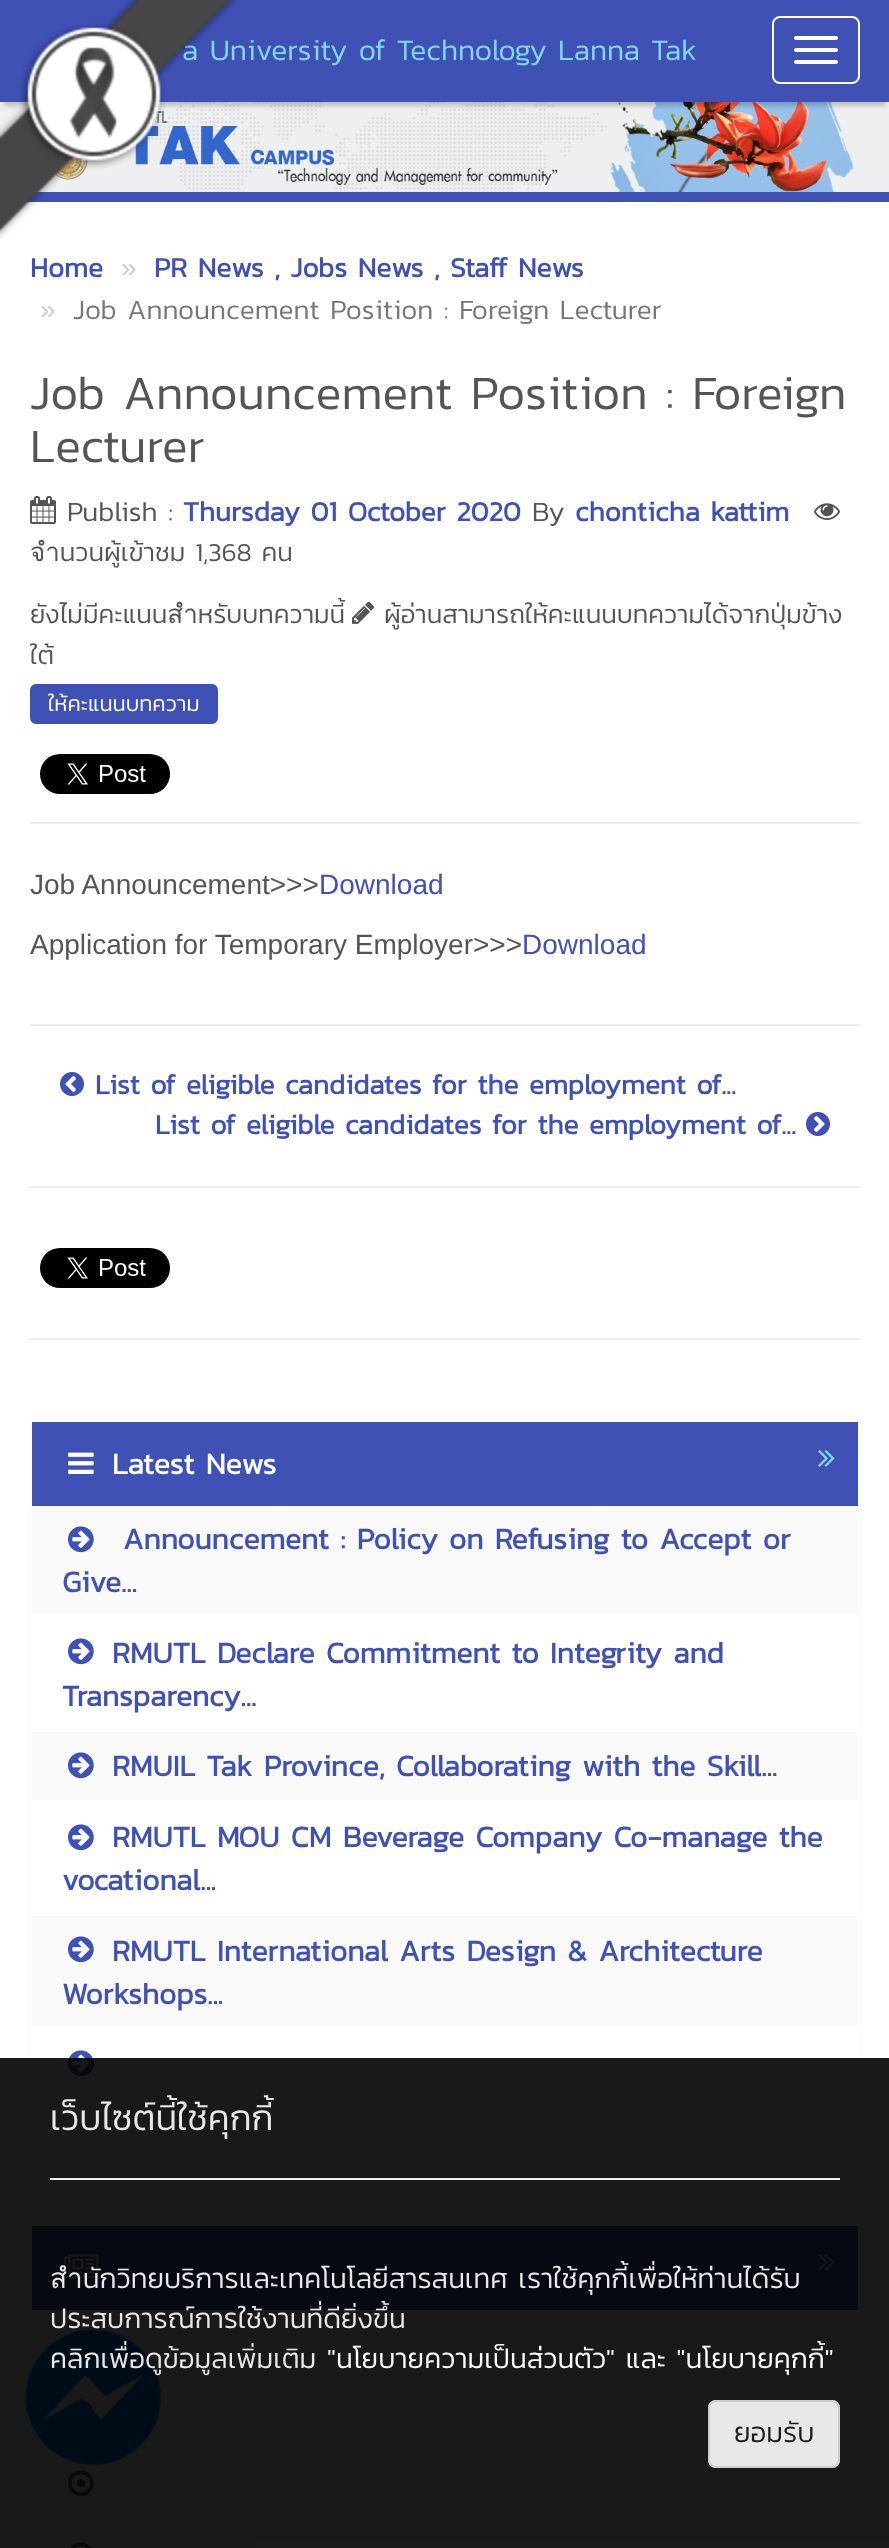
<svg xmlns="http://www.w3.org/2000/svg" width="889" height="2548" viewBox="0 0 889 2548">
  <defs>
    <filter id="blur1" x="-50%" y="-200%" width="200%" height="500%"><feGaussianBlur stdDeviation="2"/></filter>
    <filter id="blur2" x="-50%" y="-200%" width="200%" height="500%"><feGaussianBlur stdDeviation="1"/></filter>
  </defs>
  <rect width="100%" height="100%" fill="#ffffff"/>
  <image x="0" y="102" width="889" height="90" href="img2.png"/>
  <rect x="4" y="12" width="882" height="94" fill="#000000" fill-opacity="0.2" filter="url(#blur1)"/>
  <rect x="0" y="0" width="889" height="102" fill="#3f51b5"/>
  <text x="182" y="60" font-family="Kanit" font-size="30" font-weight="300" fill="#80d8ff">a University of Technology Lanna Tak</text>
  <rect x="25" y="192" width="864" height="10" fill="#3f51b5"/>
  <image x="0" y="0" width="239" height="239" href="img1.png"/>
  <rect x="773" y="17" width="86" height="66" rx="7" fill="none" stroke="#fefefe" stroke-width="2"/>
  <rect x="794" y="36" width="44" height="4" rx="2" fill="#fefefe"/>
  <rect x="794" y="48" width="44" height="4" rx="2" fill="#fefefe"/>
  <rect x="794" y="60" width="44" height="4" rx="2" fill="#fefefe"/>
  <text x="30" y="277" font-family="Kanit" font-size="28" font-weight="bold" fill="#3f51b5">Home</text>
  <text x="121" y="277" font-family="Liberation Sans" font-size="28" fill="#cccccc">»</text>
  <text x="154" y="277" font-family="Kanit" font-size="28" font-weight="bold" fill="#3f51b5">PR News , Jobs News , Staff News</text>
  <text x="40" y="319" font-family="Liberation Sans" font-size="28" fill="#cccccc">»</text>
  <text x="73" y="319" font-family="Kanit" font-size="28" font-weight="300" fill="#777777">Job Announcement Position : Foreign Lecturer</text>
  <text x="30" y="409" font-family="Kanit" font-size="48" font-weight="300" fill="#555555">Job Announcement Position : Foreign</text>
  <text x="30" y="462" font-family="Kanit" font-size="48" font-weight="300" fill="#555555">Lecturer</text>
  <image x="30" y="496" width="26" height="28" href="img3.png"/>
  <text x="67" y="521" font-family="Kanit" font-size="28" font-weight="300" fill="#555555">Publish :</text>
  <text x="183" y="521" font-family="Kanit" font-size="28" font-weight="bold" fill="#3f51b5">Thursday 01 October 2020</text>
  <text x="532" y="521" font-family="Kanit" font-size="28" font-weight="300" fill="#555555">By</text>
  <text x="575" y="521" font-family="Kanit" font-size="28" font-weight="bold" fill="#3f51b5">chonticha kattim</text>
  <image x="814" y="503" width="26" height="17" href="img4.png"/>
  <text x="30" y="561" font-family="Kanit" font-size="26" font-weight="300" fill="#555555">จำนวนผู้เข้าชม 1,368 คน</text>
  <text x="30" y="623" font-family="Kanit" font-size="26" font-weight="300" fill="#555555">ยังไม่มีคะแนนสำหรับบทความนี้</text>
  <image x="352" y="601" width="22" height="23" href="img5.png"/>
  <text x="384" y="623" font-family="Kanit" font-size="26" font-weight="300" fill="#555555">ผู้อ่านสามารถให้คะแนนบทความได้จากปุ่มข้าง</text>
  <text x="30" y="664" font-family="Kanit" font-size="26" font-weight="300" fill="#555555">ใต้</text>
  <rect x="31" y="685" width="186" height="38" rx="5" fill="#3f51b5" stroke="#3f51b5" stroke-width="2"/>
  <text x="48" y="711" font-family="Kanit" font-size="22" font-weight="300" fill="#ffffff">ให้คะแนนบทความ</text>
  <image x="40" y="754" width="130" height="40" href="img6.png"/>
  <rect x="30" y="822" width="830" height="2" fill="#eeeeee"/>
  <text x="30" y="894" font-family="Liberation Sans" font-size="28" fill="#555555">Job Announcement&gt;&gt;&gt;</text>
  <text x="319" y="894" font-family="Liberation Sans" font-size="28" fill="#3f51b5">Download</text>
  <text x="30" y="954" font-family="Liberation Sans" font-size="28" fill="#555555">Application for Temporary Employer&gt;&gt;&gt;</text>
  <text x="522" y="954" font-family="Liberation Sans" font-size="28" fill="#3f51b5">Download</text>
  <rect x="30" y="1024" width="830" height="2" fill="#eeeeee"/>
  <image x="60" y="1072" width="24" height="24" href="img7.png"/>
  <text x="95" y="1094" font-family="Kanit" font-size="28" font-weight="bold" fill="#3f51b5">List of eligible candidates for the employment of...</text>
  <text x="155" y="1134" font-family="Kanit" font-size="28" font-weight="bold" fill="#3f51b5">List of eligible candidates for the employment of...</text>
  <image x="806" y="1112" width="24" height="24" href="img8.png"/>
  <rect x="30" y="1186" width="830" height="2" fill="#eeeeee"/>
  <image x="40" y="1248" width="130" height="40" href="img9.png"/>
  <rect x="30" y="1338" width="830" height="2" fill="#eeeeee"/>
  <rect x="30" y="1422" width="830" height="722" rx="8" fill="#000000" fill-opacity="0.05" filter="url(#blur2)"/>
  <rect x="30" y="1420" width="830" height="722" rx="8" fill="#ffffff"/>
  <rect x="32" y="1422" width="826" height="84" fill="#3f51b5"/>
  <image x="68" y="1452" width="26" height="22" href="img10.png"/>
  <text x="112" y="1474" font-family="Kanit" font-size="30" font-weight="bold" fill="#ffffff">Latest News</text>
  <image x="818" y="1450" width="17" height="17" href="img11.png"/>
  <rect x="32" y="1506" width="826" height="108" fill="#f9f9f9"/>
  <image x="68" y="1526" width="26" height="27" href="img12.png"/>
  <text x="123" y="1549" font-family="Kanit" font-size="30" font-weight="bold" fill="#3f51b5">Announcement : Policy on Refusing to Accept or</text>
  <text x="62" y="1592" font-family="Kanit" font-size="30" font-weight="bold" fill="#3f51b5">Give...</text>
  <image x="68" y="1638" width="26" height="27" href="img13.png"/>
  <text x="112" y="1663" font-family="Kanit" font-size="30" font-weight="bold" fill="#3f51b5">RMUTL Declare Commitment to Integrity and</text>
  <text x="62" y="1706" font-family="Kanit" font-size="30" font-weight="bold" fill="#3f51b5">Transparency...</text>
  <rect x="32" y="1732" width="826" height="68" fill="#f9f9f9"/>
  <image x="68" y="1752" width="26" height="27" href="img12.png"/>
  <text x="112" y="1776" font-family="Kanit" font-size="30" font-weight="bold" fill="#3f51b5">RMUIL Tak Province, Collaborating with the Skill...</text>
  <image x="68" y="1824" width="26" height="27" href="img13.png"/>
  <text x="112" y="1847" font-family="Kanit" font-size="30" font-weight="bold" fill="#3f51b5">RMUTL MOU CM Beverage Company Co-manage the</text>
  <text x="62" y="1890" font-family="Kanit" font-size="30" font-weight="bold" fill="#3f51b5">vocational...</text>
  <rect x="32" y="1916" width="826" height="110" fill="#f9f9f9"/>
  <image x="68" y="1936" width="26" height="27" href="img12.png"/>
  <text x="112" y="1961" font-family="Kanit" font-size="30" font-weight="bold" fill="#3f51b5">RMUTL International Arts Design &amp; Architecture</text>
  <text x="62" y="2004" font-family="Kanit" font-size="30" font-weight="bold" fill="#3f51b5">Workshops...</text>
  <image x="68" y="2050" width="26" height="27" href="img13.png"/>
  <rect x="30" y="2182" width="830" height="2" fill="#eeeeee"/>
  <rect x="32" y="2226" width="826" height="84" fill="#3f51b5"/>
  <image x="64" y="2254" width="35" height="24" href="img14.png"/>
  <image x="818" y="2254" width="17" height="17" href="img11.png"/>
  <rect x="32" y="2310" width="826" height="66" fill="#f9f9f9"/>
  <image x="70" y="2330" width="16" height="6" href="img15.png"/>
  <image x="69" y="2400" width="25" height="14" href="img16.png"/>
  <rect x="32" y="2450" width="826" height="68" fill="#f9f9f9"/>
  <image x="68" y="2470" width="26" height="27" href="img17.png"/>
  <image x="70" y="2542" width="22" height="6" href="img18.png"/>
  <image x="24" y="2328" width="138" height="138" href="img19.png"/>
  <rect x="0" y="2058" width="889" height="490" fill="#000000" fill-opacity="0.9"/>
  <text x="50" y="2130" font-family="Kanit" font-size="36" font-weight="300" fill="#e8e8e8">เว็บไซต์นี้ใช้คุกกี้</text>
  <rect x="50" y="2178" width="790" height="2" fill="#f0f0f0"/>
  <text x="50" y="2288" font-family="Kanit" font-size="28" font-weight="300" fill="#e8e8e8">สำนักวิทยบริการและเทคโนโลยีสารสนเทศ เราใช้คุกกี้เพื่อให้ท่านได้รับ</text>
  <text x="50" y="2328" font-family="Kanit" font-size="28" font-weight="300" fill="#e8e8e8">ประสบการณ์การใช้งานที่ดียิ่งขึ้น</text>
  <text x="50" y="2368" font-family="Kanit" font-size="28" font-weight="300" fill="#e8e8e8">คลิกเพื่อดูข้อมูลเพิ่มเติม</text>
  <text x="327" y="2368" font-family="Kanit" font-size="28" font-weight="300" fill="#ffffff">"นโยบายความเป็นส่วนตัว" และ "นโยบายคุกกี้"</text>
  <rect x="708" y="2400" width="132" height="68" rx="8" fill="#e8e8e8"/>
  <rect x="709" y="2401" width="130" height="66" rx="7" fill="none" stroke="#cccccc" stroke-opacity="0.9" stroke-width="2"/>
  <text x="734" y="2442" font-family="Kanit" font-size="28" font-weight="300" fill="#1a1a1a">ยอมรับ</text>
</svg>
